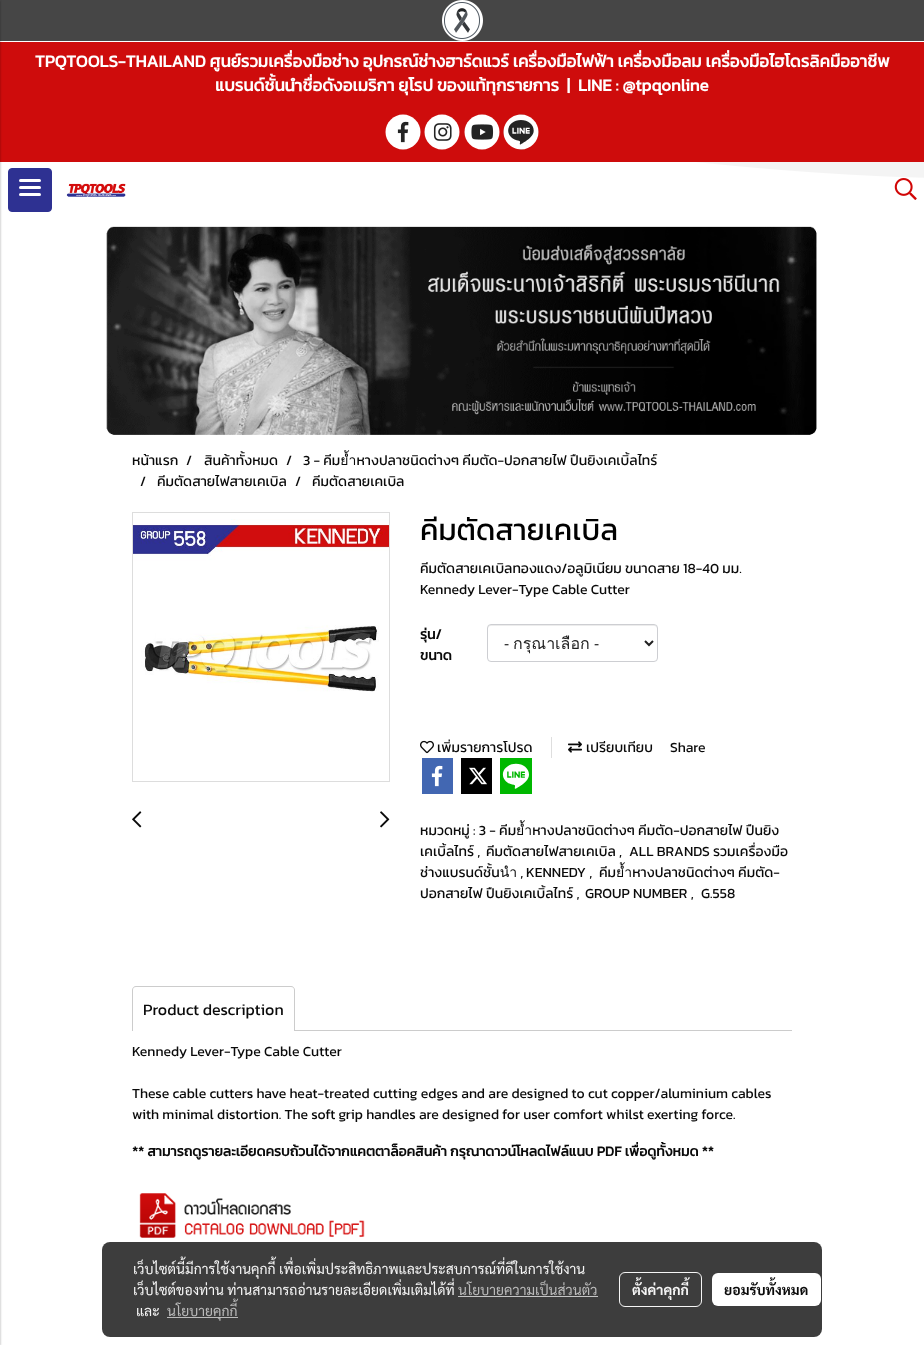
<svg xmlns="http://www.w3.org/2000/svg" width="924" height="1345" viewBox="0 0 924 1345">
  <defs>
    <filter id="blur1" x="-50%" y="-200%" width="200%" height="500%"><feGaussianBlur stdDeviation="1"/></filter>
    <filter id="blur2" x="-50%" y="-200%" width="200%" height="500%"><feGaussianBlur stdDeviation="1.5"/></filter>
  </defs>
  <rect width="100%" height="100%" fill="#ffffff"/>
  <rect x="0" y="0" width="924" height="41" fill="#464646"/>
  <image x="442" y="0" width="41" height="41" href="img1.png"/>
  <image x="0" y="162" width="924" height="16" href="img2.png"/>
  <rect x="0" y="42" width="924" height="120" fill="#ce0c0c"/>
  <rect x="-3" y="1" width="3" height="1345" fill="#000000" fill-opacity="0.24" filter="url(#blur1)"/>
  <rect x="-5" y="1" width="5" height="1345" fill="#000000" fill-opacity="0.12" filter="url(#blur2)"/>
  <rect x="8.5" y="168.5" width="43" height="43" rx="3.5" fill="#2e3192" stroke="#2e3192"/>
  <rect x="19" y="186" width="22" height="3" rx="1.5" fill="#ffffff"/>
  <rect x="19" y="179" width="22" height="3" rx="1.5" fill="#ffffff"/>
  <rect x="19" y="193" width="22" height="3" rx="1.5" fill="#ffffff"/>
  <image x="66" y="183" width="60" height="14" href="img3.png"/>
  <image x="894" y="178" width="23" height="22" href="img4.png"/>
  <text x="35" y="67" font-family="Kanit" font-size="17" font-weight="bold" fill="#ffffff">TPQTOOLS-THAILAND ศูนย์รวมเครื่องมือช่าง อุปกรณ์ช่างฮาร์ดแวร์ เครื่องมือไฟฟ้า เครื่องมือลม เครื่องมือไฮโดรลิคมืออาชีพ</text>
  <text x="215" y="91" font-family="Kanit" font-size="17" font-weight="bold" fill="#ffffff" xml:space="preserve">แบรนด์ชั้นนำชื่อดังอเมริกา ยุโรป ของแท้ทุกรายการ  |  LINE : @tpqonline</text>
  <path d="M403 114.5C393.5 114.5 385.5 122.5 385.5 132C385.5 141.5 393.5 149.5 403 149.5C412.5 149.5 420.5 141.5 420.5 132C420.5 122.5 412.5 114.5 403 114.5Z" fill="#ffffff"/>
  <image x="397" y="121" width="12" height="22" href="img5.png"/>
  <path d="M442 114.5C432.5 114.5 424.5 122.5 424.5 132C424.5 141.5 432.5 149.5 442 149.5C451.5 149.5 459.5 141.5 459.5 132C459.5 122.5 451.5 114.5 442 114.5Z" fill="#ffffff"/>
  <image x="433" y="123" width="19" height="18" href="img6.png"/>
  <path d="M482 114.5C472.5 114.5 464.5 122.5 464.5 132C464.5 141.5 472.5 149.5 482 149.5C491.5 149.5 499.5 141.5 499.5 132C499.5 122.5 491.5 114.5 482 114.5Z" fill="#ffffff"/>
  <image x="471" y="124" width="23" height="16" href="img7.png"/>
  <path d="M521 114.5C511.5 114.5 503.5 122.5 503.5 132C503.5 141.5 511.5 149.5 521 149.5C530.5 149.5 538.5 141.5 538.5 132C538.5 122.5 530.5 114.5 521 114.5Z" fill="#ffffff"/>
  <image x="503" y="114" width="36" height="36" href="img8.png"/>
  <image x="106" y="226" width="711" height="209" href="img9.png"/>
  <text x="132" y="465" font-family="Kanit" font-size="14" fill="#0a0a0a">หน้าแรก</text>
  <text x="186" y="465" font-family="Kanit" font-size="14" fill="#0a0a0a">/</text>
  <text x="204" y="465" font-family="Kanit" font-size="14" fill="#0a0a0a">สินค้าทั้งหมด</text>
  <text x="286" y="465" font-family="Kanit" font-size="14" fill="#0a0a0a">/</text>
  <text x="303" y="465" font-family="Kanit" font-size="14" fill="#0a0a0a">3 - คีมย้ำหางปลาชนิดต่างๆ คีมตัด-ปอกสายไฟ ปืนยิงเคเบิ้ลไทร์</text>
  <text x="140" y="486" font-family="Kanit" font-size="14" fill="#0a0a0a">/</text>
  <text x="157" y="486" font-family="Kanit" font-size="14" fill="#0a0a0a">คีมตัดสายไฟสายเคเบิล</text>
  <text x="295" y="486" font-family="Kanit" font-size="14" fill="#0a0a0a">/</text>
  <text x="312" y="486" font-family="Kanit" font-size="14" fill="#0a0a0a">คีมตัดสายเคเบิล</text>
  <rect x="132.5" y="512.5" width="257" height="269" fill="none" stroke="#dddddd"/>
  <image x="133" y="519" width="256" height="173" href="img10.png"/>
  <image x="132" y="811" width="10" height="17" href="img11.png"/>
  <image x="380" y="811" width="10" height="17" href="img12.png"/>
  <text x="420" y="540" font-family="Kanit" font-size="30" fill="#000000">คีมตัดสายเคเบิล</text>
  <text x="420" y="573" font-family="Kanit" font-size="14" fill="#0a0a0a">คีมตัดสายเคเบิลทองแดง/อลูมิเนียม ขนาดสาย 18-40 มม.</text>
  <text x="420" y="594" font-family="Kanit" font-size="14" fill="#0a0a0a">Kennedy Lever-Type Cable Cutter</text>
  <text x="420" y="639" font-family="Kanit" font-size="14" font-weight="bold" fill="#0a0a0a">รุ่น/</text>
  <text x="420" y="660" font-family="Kanit" font-size="14" font-weight="bold" fill="#0a0a0a">ขนาด</text>
  <path d="M491 626H654C656 626 657 627 657 629V628C657 626 656 625 654 625H491C489 625 488 626 488 628V629C488 627 489 626 491 626Z" fill="#ececec"/>
  <rect x="487.5" y="624.5" width="170" height="37" rx="3.5" fill="none" stroke="#cdced2"/>
  <path d="M645 641L649 645L653 641" fill="none" stroke="#212121" stroke-width="2"/>
  <text x="504" y="649" font-family="Open Sans" font-size="16" fill="#212121">-</text>
  <text x="513" y="649" font-family="Loma" font-size="16" fill="#212121">กรุณาเลือก</text>
  <text x="594" y="649" font-family="Open Sans" font-size="16" fill="#212121">-</text>
  <text x="437" y="752" font-family="Kanit" font-size="14" fill="#0a0a0a">เพิ่มรายการโปรด</text>
  <image x="420" y="740" width="14" height="14" href="img13.png"/>
  <rect x="551" y="737" width="1" height="21" fill="#dedede"/>
  <image x="568" y="741" width="14" height="12" href="img14.png"/>
  <text x="586" y="752" font-family="Kanit" font-size="14" fill="#0a0a0a">เปรียบเทียบ</text>
  <text x="670" y="752" font-family="Kanit" font-size="14" fill="#0a0a0a">Share</text>
  <rect x="422" y="758" width="31" height="36" fill="#4267b2"/>
  <image x="431" y="765" width="12" height="22" href="img15.png"/>
  <rect x="461" y="758" width="31" height="36" fill="#000000"/>
  <image x="469" y="767" width="18" height="18" href="img16.png"/>
  <rect x="500" y="758" width="32" height="36" fill="#00b800"/>
  <image x="502" y="763" width="27" height="26" href="img17.png"/>
  <text x="420" y="835" font-family="Kanit" font-size="14" fill="#0a0a0a">หมวดหมู่ : 3 - คีมย้ำหางปลาชนิดต่างๆ คีมตัด-ปอกสายไฟ ปืนยิง</text>
  <text x="420" y="856" font-family="Kanit" font-size="14" fill="#0a0a0a">เคเบิ้ลไทร์ ,</text>
  <text x="486" y="856" font-family="Kanit" font-size="14" fill="#0a0a0a">คีมตัดสายไฟสายเคเบิล ,</text>
  <text x="629" y="856" font-family="Kanit" font-size="14" fill="#0a0a0a">ALL BRANDS รวมเครื่องมือ</text>
  <text x="420" y="877" font-family="Kanit" font-size="14" fill="#0a0a0a">ช่างแบรนด์ชั้นนำ ,</text>
  <text x="526" y="877" font-family="Kanit" font-size="14" fill="#0a0a0a">KENNEDY ,</text>
  <text x="599" y="877" font-family="Kanit" font-size="14" fill="#0a0a0a">คีมย้ำหางปลาชนิดต่างๆ คีมตัด-</text>
  <text x="420" y="898" font-family="Kanit" font-size="14" fill="#0a0a0a">ปอกสายไฟ ปืนยิงเคเบิ้ลไทร์ ,</text>
  <text x="585" y="898" font-family="Kanit" font-size="14" fill="#0a0a0a">GROUP NUMBER ,</text>
  <text x="701" y="898" font-family="Kanit" font-size="14" fill="#0a0a0a">G.558</text>
  <path d="M136 986H291C293 986 295 988 295 990V1031H132V990C132 988 134 986 136 986ZM136 987H291C293 987 294 988 294 990V1031H133V990C133 988 134 987 136 987Z" fill="#cccccc" fill-rule="evenodd"/>
  <text x="143" y="1015" font-family="Kanit" font-size="16" fill="#0a0a0a">Product description</text>
  <rect x="295" y="1030" width="497" height="1" fill="#cccccc"/>
  <text x="132" y="1056" font-family="Kanit" font-size="14" fill="#0a0a0a">Kennedy Lever-Type Cable Cutter</text>
  <text x="132" y="1098" font-family="Kanit" font-size="14" fill="#0a0a0a">These cable cutters have heat-treated cutting edges and are designed to cut copper/aluminium cables</text>
  <text x="132" y="1119" font-family="Kanit" font-size="14" fill="#0a0a0a">with minimal distortion. The soft grip handles are designed for user comfort whilst exerting force.</text>
  <text x="132" y="1156" font-family="Kanit" font-size="14" font-weight="bold" fill="#0a0a0a">** สามารถดูรายละเอียดครบถ้วนได้จากแคตตาล็อคสินค้า กรุณาดาวน์โหลดไฟล์แนบ PDF เพื่อดูทั้งหมด **</text>
  <image x="139" y="1193" width="226" height="45" href="img18.png"/>
  <rect x="102" y="1242" width="720" height="95" rx="8" fill="#000000" fill-opacity="0.76"/>
  <text x="133" y="1274" font-family="Sarabun" font-size="14" fill="#f5f5f5">เว็บไซต์นี้มีการใช้งานคุกกี้ เพื่อเพิ่มประสิทธิภาพและประสบการณ์ที่ดีในการใช้งาน</text>
  <text x="133" y="1295" font-family="Sarabun" font-size="14" fill="#f5f5f5">เว็บไซต์ของท่าน ท่านสามารถอ่านรายละเอียดเพิ่มเติมได้ที่</text>
  <text x="458" y="1295" font-family="Sarabun" font-size="14" fill="#bbbbbb">นโยบายความเป็นส่วนตัว</text>
  <rect x="458" y="1296" width="140" height="1" fill="#c5c5c5"/>
  <text x="136" y="1316" font-family="Sarabun" font-size="14" fill="#f5f5f5">และ</text>
  <rect x="167" y="1317" width="71" height="1" fill="#c2c2c2" fill-opacity="0.95"/>
  <text x="167" y="1316" font-family="Sarabun" font-size="14" fill="#bbbbbb">นโยบายคุกกี้</text>
  <rect x="619.5" y="1272.5" width="82" height="34" rx="5.5" fill="none" stroke="#ffffff" stroke-opacity="0.95"/>
  <text x="632" y="1295" font-family="Sarabun" font-size="14" font-weight="bold" fill="#f5f5f5">ตั้งค่าคุกกี้</text>
  <rect x="712" y="1273" width="109" height="33" rx="6" fill="#ffffff"/>
  <text x="724" y="1295" font-family="Sarabun" font-size="14" font-weight="bold" fill="#0a0a0a">ยอมรับทั้งหมด</text>
</svg>
